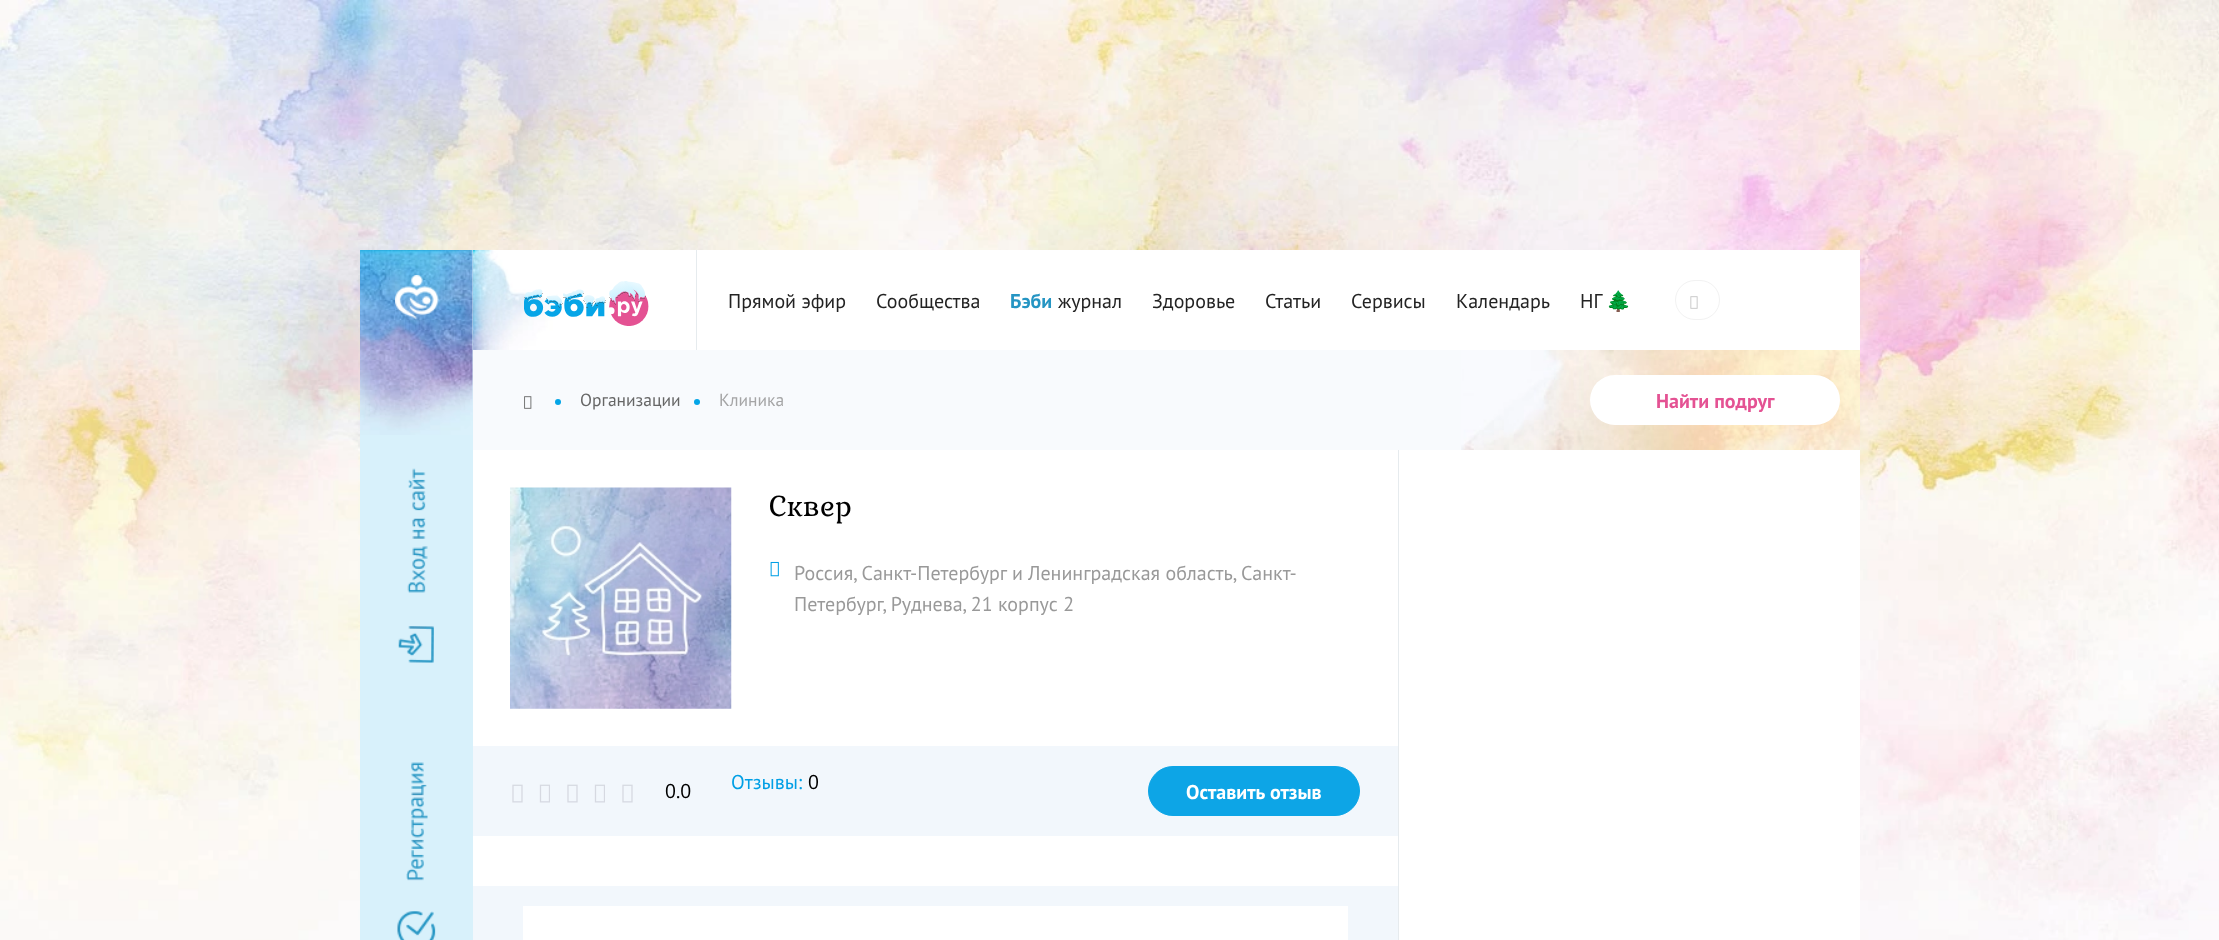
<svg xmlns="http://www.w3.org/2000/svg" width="2219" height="940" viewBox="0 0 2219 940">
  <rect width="100%" height="100%" fill="#ffffff"/>
  <image x="0" y="0" width="2219" height="940" href="img1.png"/>
  <rect x="360" y="250" width="113" height="690" fill="#d8f1fb"/>
  <image x="360" y="250" width="113" height="185" href="img2.png"/>
  <image x="398" y="468" width="36" height="195" href="img3.png"/>
  <image x="395" y="275" width="44" height="44" href="img4.png"/>
  <image x="397" y="762" width="39" height="178" href="img5.png"/>
  <rect x="558" y="250" width="1302" height="100" fill="#ffffff"/>
  <image x="473" y="250" width="85" height="100" href="img6.png"/>
  <image x="524" y="281" width="125" height="45" href="img7.png"/>
  <rect x="696" y="250" width="1" height="100" fill="#e6ebee"/>
  <text x="728" y="308" font-family="PT Sans" font-size="20" fill="#232323">Прямой эфир</text>
  <text x="876" y="308" font-family="PT Sans" font-size="20" fill="#232323">Сообщества</text>
  <text x="1010" y="308" font-family="PT Sans" font-size="20" font-weight="bold" fill="#2595c3">Бэби</text>
  <text x="1058" y="308" font-family="PT Sans" font-size="20" fill="#232323">журнал</text>
  <text x="1152" y="308" font-family="PT Sans" font-size="20" fill="#232323">Здоровье</text>
  <text x="1265" y="308" font-family="PT Sans" font-size="20" fill="#232323">Статьи</text>
  <text x="1351" y="308" font-family="PT Sans" font-size="20" fill="#232323">Сервисы</text>
  <text x="1456" y="308" font-family="PT Sans" font-size="20" fill="#232323">Календарь</text>
  <text x="1580" y="308" font-family="PT Sans" font-size="20" fill="#232323">НГ</text>
  <text x="1606" y="308" font-family="Noto Color Emoji" font-size="20" fill="#232323">🌲</text>
  <rect x="1675.5" y="280.5" width="44" height="39" rx="19.5" fill="none" stroke="#f2f2f2"/>
  <image x="1690" y="296" width="8" height="13" href="img8.png"/>
  <rect x="473" y="350" width="988" height="100" fill="#f8fafd"/>
  <image x="1461" y="350" width="399" height="100" href="img9.png"/>
  <image x="524" y="396" width="8" height="13" href="img10.png"/>
  <circle cx="558" cy="402" r="3" fill="#04a5e7"/>
  <text x="580" y="406" font-family="PT Sans" font-size="17.5" fill="#666666">Организации</text>
  <circle cx="697" cy="402" r="3" fill="#04a5e7"/>
  <text x="719" y="406" font-family="PT Sans" font-size="17.5" fill="#a5a5a6">Клиника</text>
  <rect x="1590" y="375" width="250" height="50" rx="25" fill="#ffffff"/>
  <text x="1656" y="408" font-family="PT Sans" font-size="20" font-weight="bold" fill="#e45293">Найти подруг</text>
  <rect x="1399" y="450" width="461" height="490" fill="#ffffff"/>
  <rect x="473" y="450" width="925" height="436" fill="#ffffff"/>
  <image x="510" y="487" width="222" height="222" href="img11.png"/>
  <text x="769" y="516" font-family="Kurale" font-size="31" fill="#000000">Сквер</text>
  <image x="770" y="561" width="9" height="16" href="img12.png"/>
  <text x="794" y="580" font-family="PT Sans" font-size="20" fill="#999999">Россия, Санкт-Петербург и Ленинградская область, Санкт-</text>
  <text x="794" y="611" font-family="PT Sans" font-size="20" fill="#999999">Петербург, Руднева, 21 корпус 2</text>
  <rect x="473" y="746" width="925" height="90" fill="#f2f7fc"/>
  <image x="512" y="784" width="11" height="19" href="img13.png"/>
  <image x="539" y="784" width="11" height="19" href="img14.png"/>
  <image x="567" y="784" width="11" height="19" href="img13.png"/>
  <image x="594" y="784" width="11" height="19" href="img14.png"/>
  <image x="622" y="784" width="11" height="19" href="img13.png"/>
  <text x="665" y="798" font-family="PT Sans" font-size="20" fill="#000000">0.0</text>
  <text x="731" y="789" font-family="PT Sans" font-size="20" fill="#009fe5">Отзывы:</text>
  <text x="808" y="789" font-family="PT Sans" font-size="20" fill="#000000">0</text>
  <rect x="1148.5" y="766.5" width="211" height="49" rx="24.5" fill="#0da5e6" stroke="#0da5e6"/>
  <text x="1186" y="799" font-family="PT Sans" font-size="20" font-weight="bold" fill="#ffffff">Оставить отзыв</text>
  <rect x="473" y="886" width="925" height="54" fill="#f2f7fc"/>
  <rect x="523" y="906" width="825" height="34" fill="#ffffff"/>
  <rect x="1398" y="450" width="1" height="490" fill="#e6ebee"/>
</svg>
